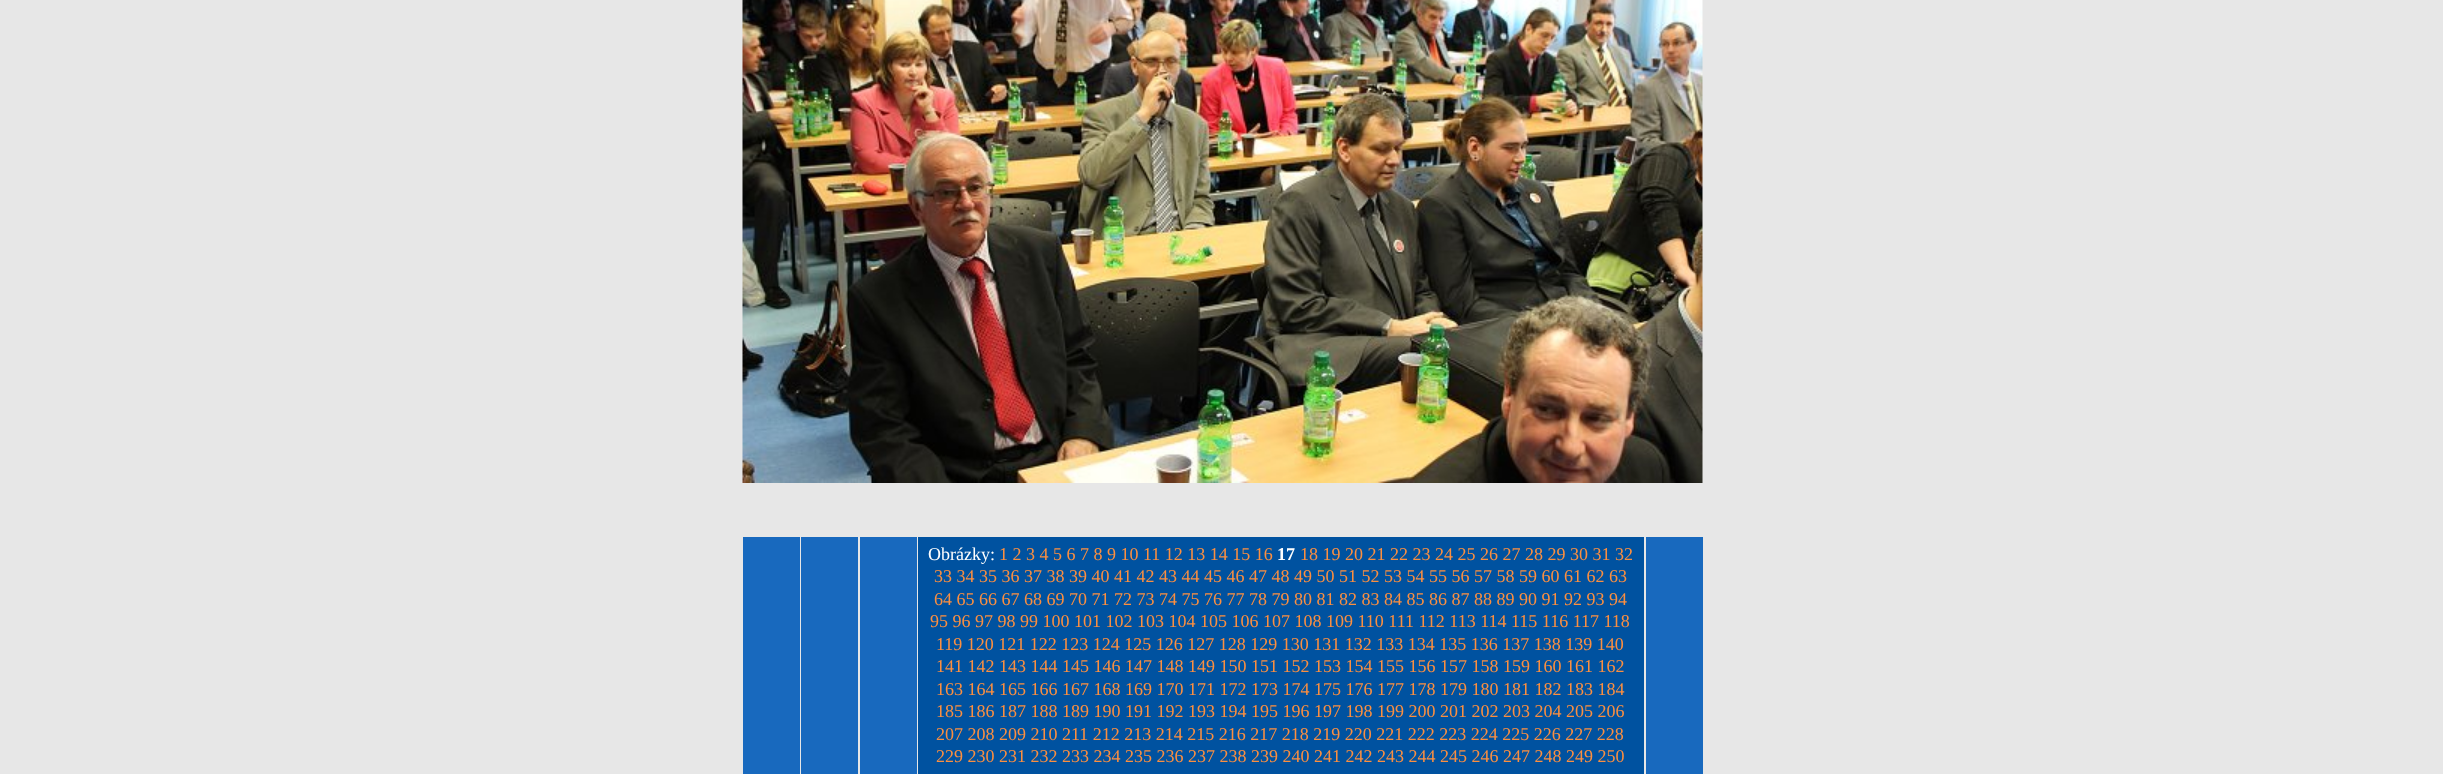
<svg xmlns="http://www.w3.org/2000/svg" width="2443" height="774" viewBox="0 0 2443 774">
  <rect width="100%" height="100%" fill="#e7e7e7"/>
  <image x="742" y="0" width="961" height="483" href="img1.png"/>
  <rect x="743" y="537" width="57" height="237" fill="#1869be"/>
  <rect x="801" y="537" width="57" height="237" fill="#1869be"/>
  <rect x="860" y="537" width="57" height="237" fill="#1869be"/>
  <rect x="918" y="537" width="726" height="237" fill="#0052a0"/>
  <text x="928" y="560" font-family="Liberation Serif" font-size="18" fill="#ffffff">Obrázky:</text>
  <text x="999" y="560" font-family="Liberation Serif" font-size="18" fill="#fb8f40">1 2 3 4 5 6 7 8 9 10 11 12 13 14 15 16</text>
  <text x="1277" y="560" font-family="Liberation Serif" font-size="18" font-weight="bold" fill="#ffffff">17</text>
  <text x="1300" y="560" font-family="Liberation Serif" font-size="18" fill="#fb8f40">18 19 20 21 22 23 24 25 26 27 28 29 30 31 32</text>
  <text x="934" y="582" font-family="Liberation Serif" font-size="18" fill="#fb8f40">33 34 35 36 37 38 39 40 41 42 43 44 45 46 47 48 49 50 51 52 53 54 55 56 57 58 59 60 61 62 63</text>
  <text x="934" y="605" font-family="Liberation Serif" font-size="18" fill="#fb8f40">64 65 66 67 68 69 70 71 72 73 74 75 76 77 78 79 80 81 82 83 84 85 86 87 88 89 90 91 92 93 94</text>
  <text x="930" y="627" font-family="Liberation Serif" font-size="18" fill="#fb8f40">95 96 97 98 99 100 101 102 103 104 105 106 107 108 109 110 111 112 113 114 115 116 117 118</text>
  <text x="936" y="650" font-family="Liberation Serif" font-size="18" fill="#fb8f40">119 120 121 122 123 124 125 126 127 128 129 130 131 132 133 134 135 136 137 138 139 140</text>
  <text x="936" y="672" font-family="Liberation Serif" font-size="18" fill="#fb8f40">141 142 143 144 145 146 147 148 149 150 151 152 153 154 155 156 157 158 159 160 161 162</text>
  <text x="936" y="695" font-family="Liberation Serif" font-size="18" fill="#fb8f40">163 164 165 166 167 168 169 170 171 172 173 174 175 176 177 178 179 180 181 182 183 184</text>
  <text x="936" y="717" font-family="Liberation Serif" font-size="18" fill="#fb8f40">185 186 187 188 189 190 191 192 193 194 195 196 197 198 199 200 201 202 203 204 205 206</text>
  <text x="936" y="740" font-family="Liberation Serif" font-size="18" fill="#fb8f40">207 208 209 210 211 212 213 214 215 216 217 218 219 220 221 222 223 224 225 226 227 228</text>
  <text x="936" y="762" font-family="Liberation Serif" font-size="18" fill="#fb8f40">229 230 231 232 233 234 235 236 237 238 239 240 241 242 243 244 245 246 247 248 249 250</text>
  <rect x="1646" y="537" width="57" height="237" fill="#1869be"/>
</svg>
